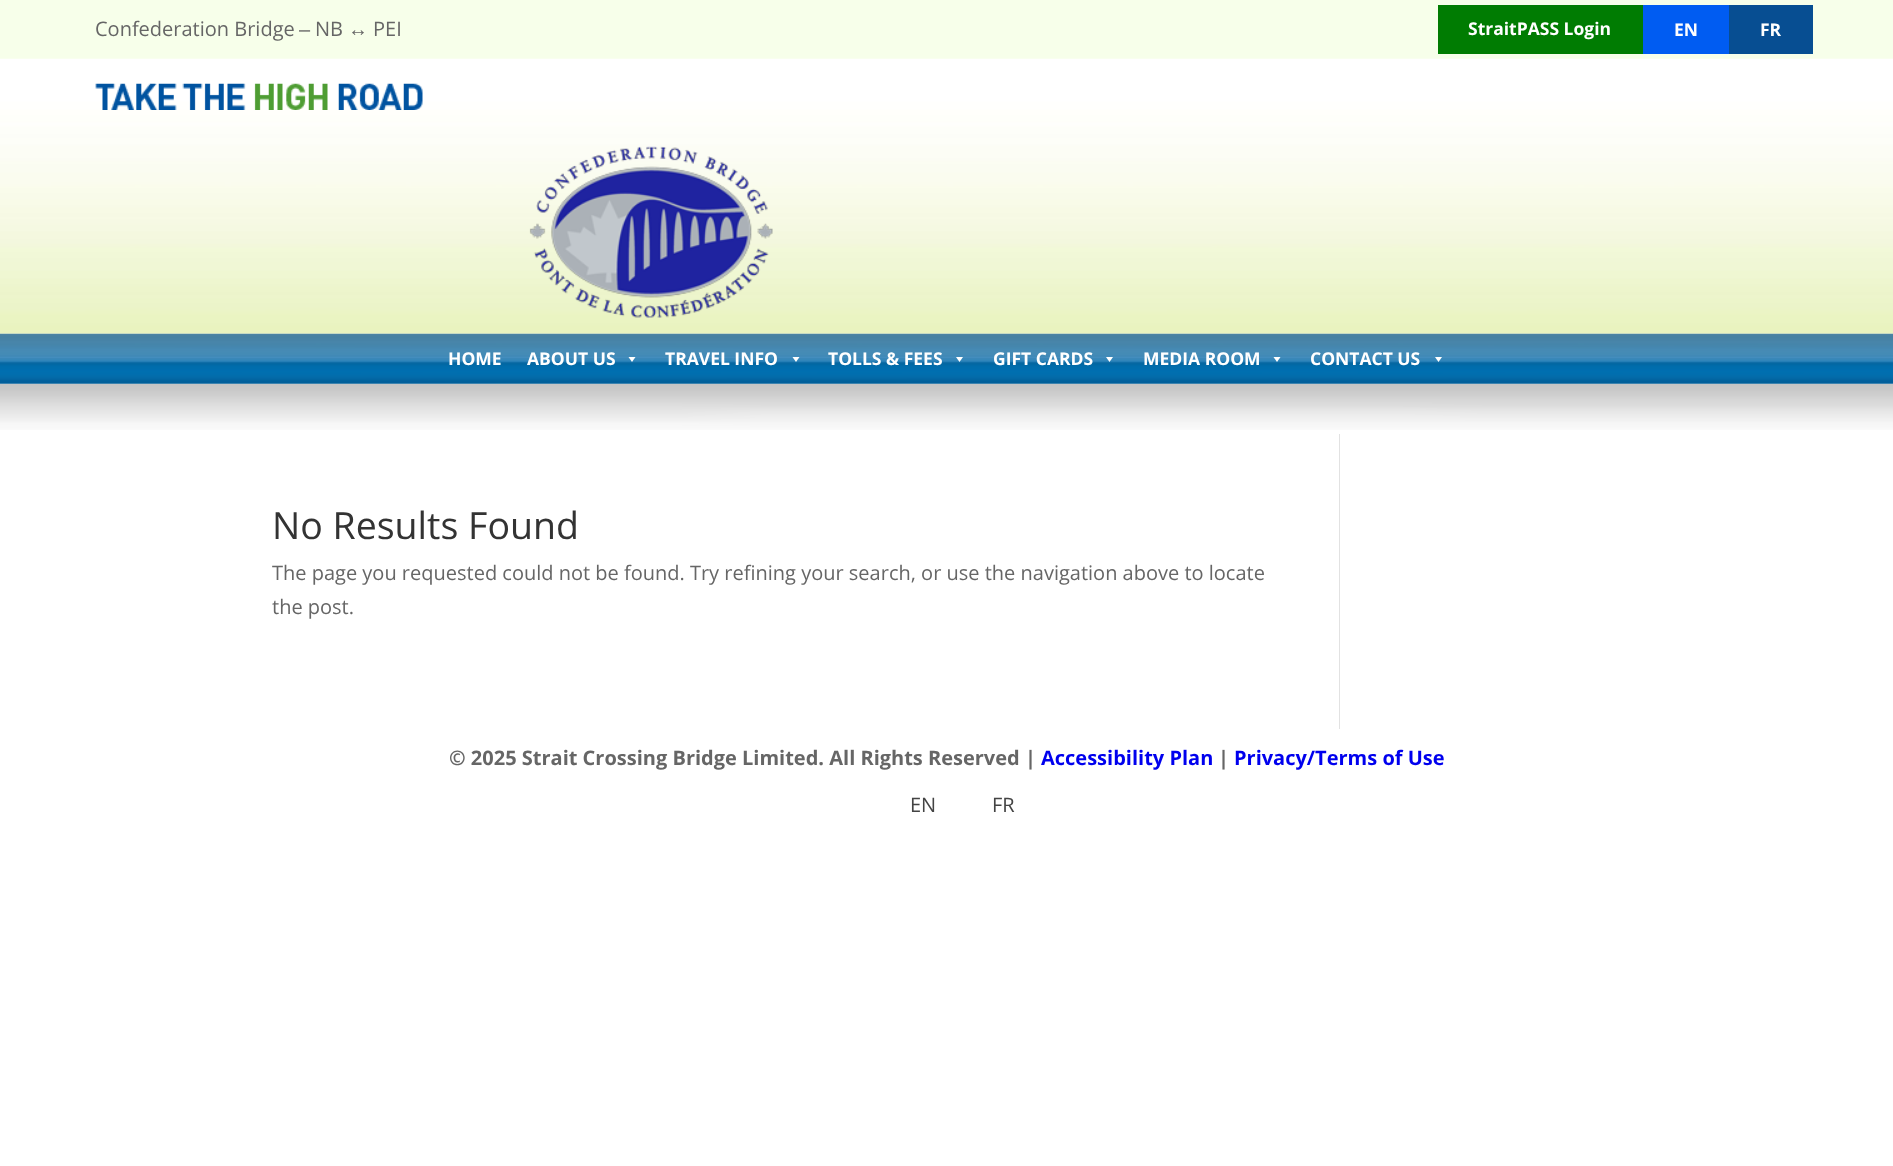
<svg xmlns="http://www.w3.org/2000/svg" width="1893" height="1166" viewBox="0 0 1893 1166">
  <rect width="100%" height="100%" fill="#ffffff"/>
  <rect x="0" y="0" width="1893" height="59" fill="#f7ffea"/>
  <text x="95" y="36" font-family="Open Sans" font-size="20" fill="#666666">Confederation Bridge</text>
  <text x="299" y="36" font-family="Liberation Sans" font-size="20" fill="#666666">–</text>
  <text x="315" y="36" font-family="Open Sans" font-size="20" fill="#666666">NB</text>
  <text x="348" y="36" font-family="Liberation Sans" font-size="20" fill="#666666">↔</text>
  <text x="373" y="36" font-family="Open Sans" font-size="20" fill="#666666">PEI</text>
  <rect x="1438" y="5" width="205" height="49" fill="#007c02"/>
  <text x="1468" y="35" font-family="Open Sans" font-size="17.5" font-weight="bold" fill="#ffffff">StraitPASS Login</text>
  <rect x="1643" y="5" width="86" height="49" fill="#005cf2"/>
  <text x="1674" y="36" font-family="Open Sans" font-size="17.5" font-weight="bold" fill="#ffffff">EN</text>
  <rect x="1729" y="5" width="84" height="49" fill="#074e92"/>
  <text x="1760" y="36" font-family="Open Sans" font-size="17.5" font-weight="bold" fill="#ffffff">FR</text>
  <image x="0" y="58" width="1893" height="276" href="img1.png"/>
  <image x="95" y="83" width="328" height="27" href="img2.png"/>
  <image x="529" y="146" width="244" height="172" href="img3.png"/>
  <image x="0" y="383" width="1893" height="47" href="img5.png"/>
  <image x="0" y="333" width="1893" height="51" href="img4.png"/>
  <text x="448" y="365" font-family="Open Sans" font-size="17.5" font-weight="bold" fill="#ffffff">HOME</text>
  <text x="527" y="365" font-family="Open Sans" font-size="17.5" font-weight="bold" fill="#ffffff">ABOUT US</text>
  <path d="M635.5 357L632 362L628.5 357Z" fill="#ffffff"/>
  <text x="665" y="365" font-family="Open Sans" font-size="17.5" font-weight="bold" fill="#ffffff">TRAVEL INFO</text>
  <path d="M799.5 357L796 362L792.5 357Z" fill="#ffffff"/>
  <text x="828" y="365" font-family="Open Sans" font-size="17.5" font-weight="bold" fill="#ffffff">TOLLS &amp; FEES</text>
  <path d="M963 357L959.5 362L956 357Z" fill="#ffffff"/>
  <text x="993" y="365" font-family="Open Sans" font-size="17.5" font-weight="bold" fill="#ffffff">GIFT CARDS</text>
  <path d="M1113 357L1109.5 362L1106 357Z" fill="#ffffff"/>
  <text x="1143" y="365" font-family="Open Sans" font-size="17.5" font-weight="bold" fill="#ffffff">MEDIA ROOM</text>
  <path d="M1280.5 357L1277 362L1273.5 357Z" fill="#ffffff"/>
  <text x="1310" y="365" font-family="Open Sans" font-size="17.5" font-weight="bold" fill="#ffffff">CONTACT US</text>
  <path d="M1442 357L1438.5 362L1435 357Z" fill="#ffffff"/>
  <text x="272" y="539" font-family="Open Sans" font-size="37.5" fill="#333333">No Results Found</text>
  <text x="272" y="580" font-family="Open Sans" font-size="20" fill="#666666">The page you requested could not be found. Try refining your search, or use the navigation above to locate</text>
  <text x="272" y="614" font-family="Open Sans" font-size="20" fill="#666666">the post.</text>
  <rect x="1339" y="434" width="1" height="295" fill="#e2e2e2"/>
  <text x="449" y="765" font-family="Open Sans" font-size="20" font-weight="bold" fill="#666666">© 2025 Strait Crossing Bridge Limited. All Rights Reserved |</text>
  <text x="1041" y="765" font-family="Open Sans" font-size="20" font-weight="bold" fill="#0000ee">Accessibility Plan</text>
  <text x="1218" y="765" font-family="Open Sans" font-size="20" font-weight="bold" fill="#666666">|</text>
  <text x="1234" y="765" font-family="Open Sans" font-size="20" font-weight="bold" fill="#0000ee">Privacy/Terms of Use</text>
  <text x="910" y="812" font-family="Open Sans" font-size="20" fill="#444444">EN</text>
  <text x="992" y="812" font-family="Open Sans" font-size="20" fill="#444444">FR</text>
</svg>
